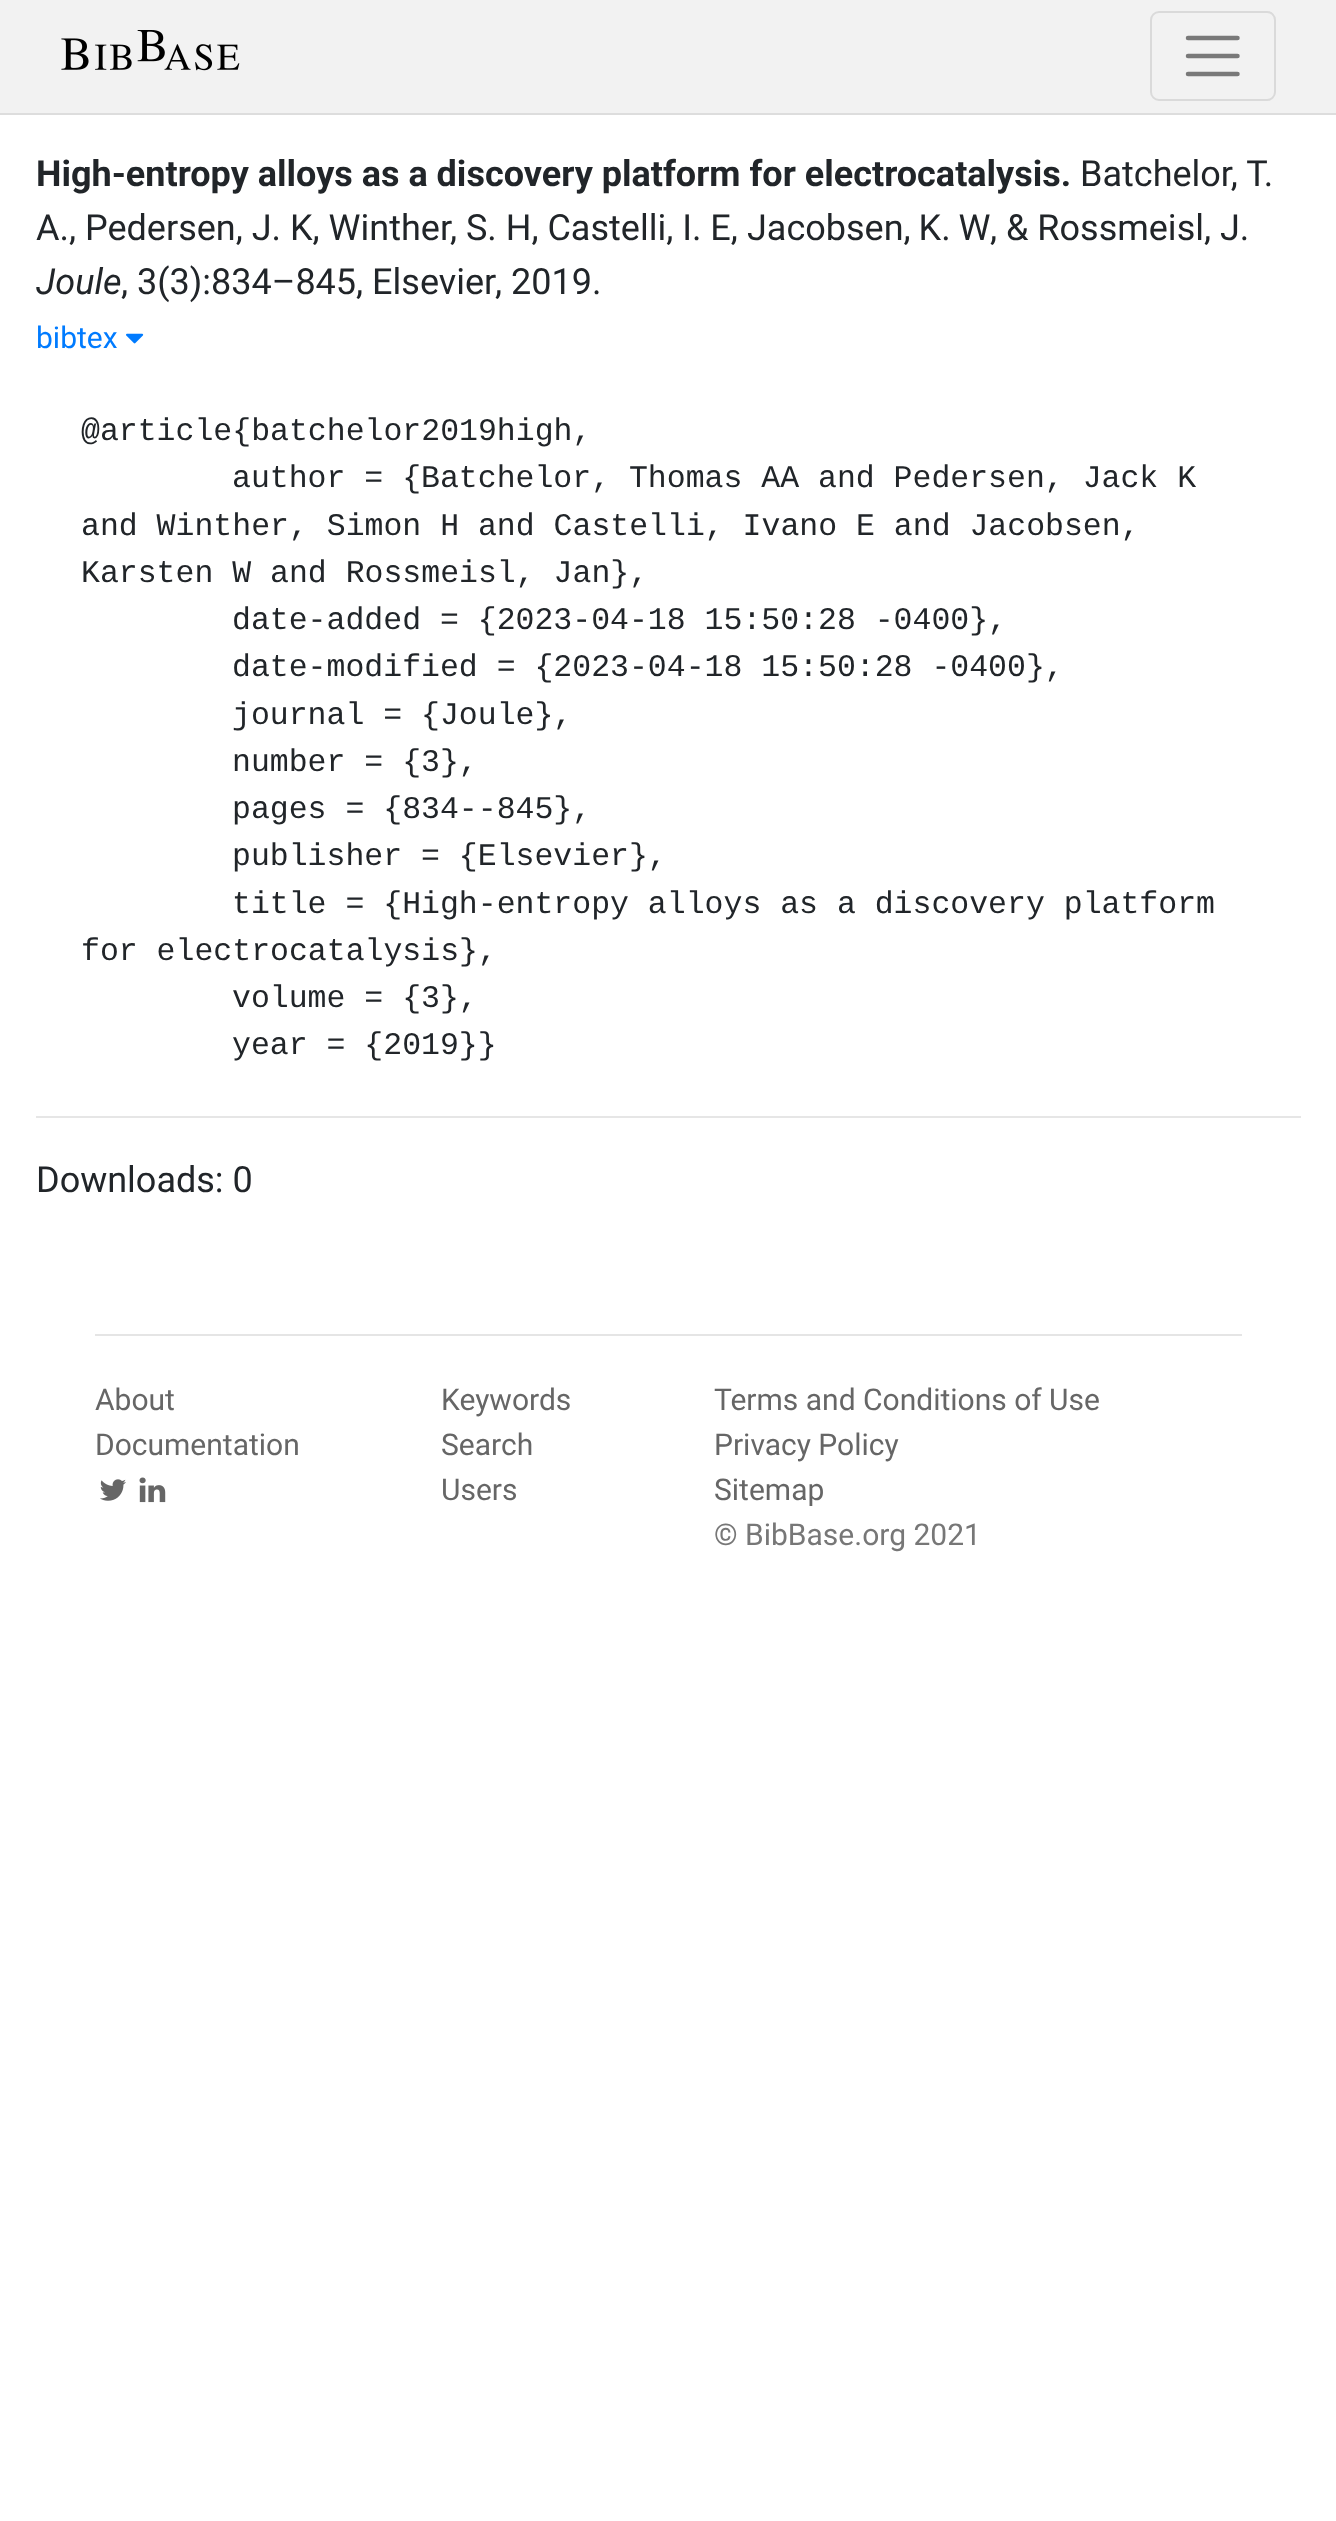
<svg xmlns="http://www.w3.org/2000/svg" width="1336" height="2521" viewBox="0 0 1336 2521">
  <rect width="100%" height="100%" fill="#ffffff"/>
  <rect x="0" y="0" width="1336" height="113" fill="#f2f2f2"/>
  <rect x="0" y="113" width="1336" height="2" fill="#dddddd"/>
  <image x="61" y="30" width="179" height="41" href="img1.png"/>
  <rect x="1151" y="12" width="124" height="88" rx="8" fill="none" stroke="#dadada" stroke-width="2"/>
  <path d="M1188 38H1237.5M1188 56H1237.5M1188 74H1237.5" fill="none" stroke="#797979" stroke-width="4.5" stroke-linecap="round"/>
  <text x="36" y="186" font-family="Roboto" font-size="36" font-weight="bold" fill="#212529">High-entropy alloys as a discovery platform for electrocatalysis.</text>
  <text x="1080" y="186" font-family="Roboto" font-size="36" fill="#212529">Batchelor, T.</text>
  <text x="36" y="240" font-family="Roboto" font-size="36" fill="#212529">A., Pedersen, J. K, Winther, S. H, Castelli, I. E,</text>
  <text x="747" y="240" word-spacing="-1" font-family="Roboto" font-size="36" fill="#212529">Jacobsen, K. W</text>
  <text x="990" y="240" font-family="Roboto" font-size="36" fill="#212529">, &amp; Rossmeisl, J.</text>
  <text x="36" y="294" font-family="Roboto" font-size="36" font-style="italic" fill="#212529">Joule</text>
  <text x="121" y="294" font-family="Roboto" font-size="36" fill="#212529">, 3(3):834–845, Elsevier</text>
  <text x="495" y="294" font-family="Roboto" font-size="36" fill="#212529">, 2019.</text>
  <text x="36" y="348" font-family="Roboto" font-size="30" fill="#007bff">bibtex</text>
  <image x="126" y="333" width="18" height="11" href="img2.png"/>
  <text x="81" y="440" font-family="Liberation Mono" font-size="31.5" fill="#212529">@article{batchelor2019high,</text>
  <text x="232" y="487" font-family="Liberation Mono" font-size="31.5" fill="#212529">author = {Batchelor, Thomas AA and Pedersen, Jack K</text>
  <text x="81" y="535" font-family="Liberation Mono" font-size="31.5" fill="#212529">and Winther, Simon H and Castelli, Ivano E and Jacobsen,</text>
  <text x="81" y="582" font-family="Liberation Mono" font-size="31.5" fill="#212529">Karsten W and Rossmeisl, Jan},</text>
  <text x="232" y="629" font-family="Liberation Mono" font-size="31.5" fill="#212529">date-added = {2023-04-18 15:50:28 -0400},</text>
  <text x="232" y="676" font-family="Liberation Mono" font-size="31.5" fill="#212529">date-modified = {2023-04-18 15:50:28 -0400},</text>
  <text x="232" y="724" font-family="Liberation Mono" font-size="31.5" fill="#212529">journal = {Joule},</text>
  <text x="232" y="771" font-family="Liberation Mono" font-size="31.5" fill="#212529">number = {3},</text>
  <text x="232" y="818" font-family="Liberation Mono" font-size="31.5" fill="#212529">pages = {834--845},</text>
  <text x="232" y="865" font-family="Liberation Mono" font-size="31.5" fill="#212529">publisher = {Elsevier},</text>
  <text x="232" y="913" font-family="Liberation Mono" font-size="31.5" fill="#212529">title = {High-entropy alloys as a discovery platform</text>
  <text x="81" y="960" font-family="Liberation Mono" font-size="31.5" fill="#212529">for electrocatalysis},</text>
  <text x="232" y="1007" font-family="Liberation Mono" font-size="31.5" fill="#212529">volume = {3},</text>
  <text x="232" y="1054" font-family="Liberation Mono" font-size="31.5" fill="#212529">year = {2019}}</text>
  <rect x="36" y="1116" width="1265" height="2" fill="#e6e6e6"/>
  <text x="36" y="1192" font-family="Roboto" font-size="36" fill="#212529">Downloads: 0</text>
  <rect x="95" y="1334" width="1147" height="2" fill="#e5e5e5"/>
  <text x="95" y="1410" font-family="Roboto" font-size="30" fill="#666666">About</text>
  <text x="95" y="1455" font-family="Roboto" font-size="30" fill="#666666">Documentation</text>
  <image x="100" y="1479" width="26" height="22" href="img3.png"/>
  <image x="139" y="1477" width="27" height="26" href="img4.png"/>
  <text x="441" y="1410" font-family="Roboto" font-size="30" fill="#666666">Keywords</text>
  <text x="441" y="1455" font-family="Roboto" font-size="30" fill="#666666">Search</text>
  <text x="441" y="1500" font-family="Roboto" font-size="30" fill="#666666">Users</text>
  <text x="714" y="1410" font-family="Roboto" font-size="30" fill="#666666">Terms and Conditions of Use</text>
  <text x="714" y="1455" font-family="Roboto" font-size="30" fill="#666666">Privacy Policy</text>
  <text x="714" y="1500" font-family="Roboto" font-size="30" fill="#666666">Sitemap</text>
  <text x="714" y="1545" font-family="Roboto" font-size="30" fill="#777777">© BibBase.org 2021</text>
</svg>
